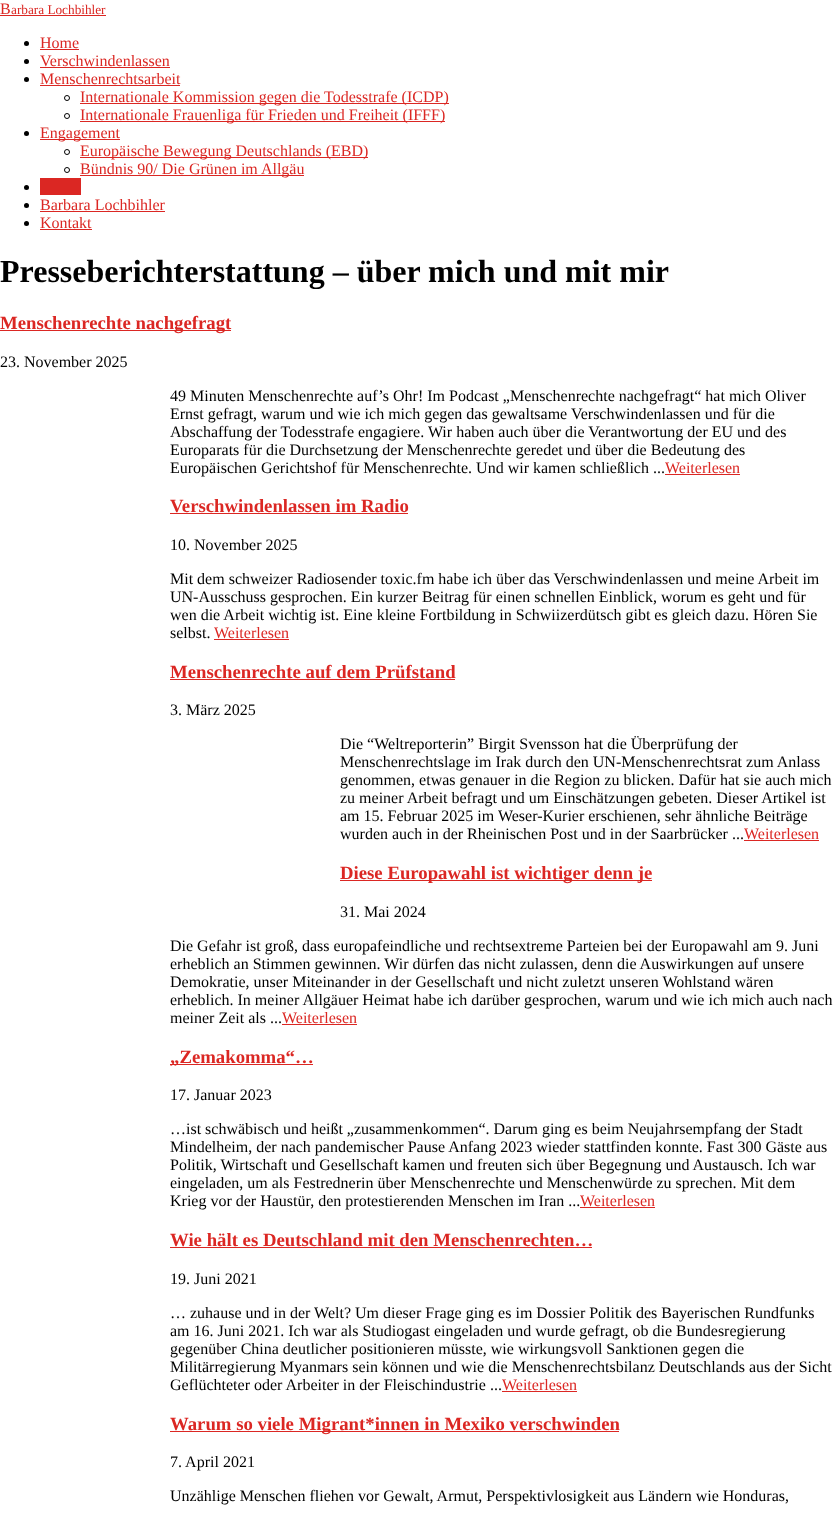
<svg xmlns="http://www.w3.org/2000/svg" width="835" height="1516" viewBox="0 0 835 1516">
  <rect width="100%" height="100%" fill="#ffffff"/>
  <text x="0" y="14" font-family="Liberation Serif" font-size="16" fill="#db2723">B</text>
  <text x="11" y="14" font-family="Liberation Serif" font-size="13.25" fill="#db2723">arbara Lochbihler</text>
  <rect x="0" y="15" width="106" height="1" fill="#db2723"/>
  <circle cx="26.5" cy="43.5" r="2.5" fill="#000000"/>
  <text x="40" y="48" font-family="Liberation Serif" font-size="16" fill="#db2723">Home</text>
  <rect x="40" y="49" width="39" height="1" fill="#db2723"/>
  <circle cx="26.5" cy="61.5" r="2.5" fill="#000000"/>
  <text x="40" y="66" font-family="Liberation Serif" font-size="16" fill="#db2723">Verschwindenlassen</text>
  <rect x="40" y="67" width="130" height="1" fill="#db2723"/>
  <circle cx="26.5" cy="79.5" r="2.5" fill="#000000"/>
  <text x="40" y="84" font-family="Liberation Serif" font-size="16" fill="#db2723">Menschenrechtsarbeit</text>
  <rect x="40" y="85" width="140" height="1" fill="#db2723"/>
  <circle cx="67" cy="98" r="2.5" fill="none" stroke="#000000"/>
  <rect x="80" y="103" width="369" height="1" fill="#db2723"/>
  <text x="80" y="102" font-family="Liberation Serif" font-size="16" fill="#db2723">Internationale Kommission gegen die Todesstrafe (ICDP)</text>
  <circle cx="67" cy="116" r="2.5" fill="none" stroke="#000000"/>
  <rect x="80" y="121" width="365" height="1" fill="#db2723"/>
  <text x="80" y="120" font-family="Liberation Serif" font-size="16" fill="#db2723">Internationale Frauenliga für Frieden und Freiheit (IFFF)</text>
  <circle cx="26.5" cy="133.5" r="2.5" fill="#000000"/>
  <rect x="40" y="139" width="80" height="1" fill="#db2723"/>
  <text x="40" y="138" font-family="Liberation Serif" font-size="16" fill="#db2723">Engagement</text>
  <circle cx="67" cy="152" r="2.5" fill="none" stroke="#000000"/>
  <rect x="80" y="157" width="288" height="1" fill="#db2723"/>
  <text x="80" y="156" font-family="Liberation Serif" font-size="16" fill="#db2723">Europäische Bewegung Deutschlands (EBD)</text>
  <circle cx="67" cy="170" r="2.5" fill="none" stroke="#000000"/>
  <rect x="80" y="175" width="224" height="1" fill="#db2723"/>
  <text x="80" y="174" font-family="Liberation Serif" font-size="16" fill="#db2723">Bündnis 90/ Die Grünen im Allgäu</text>
  <circle cx="26.5" cy="187.5" r="2.5" fill="#000000"/>
  <rect x="40" y="178" width="41" height="17" fill="#db2723"/>
  <circle cx="26.5" cy="205.5" r="2.5" fill="#000000"/>
  <text x="40" y="210" font-family="Liberation Serif" font-size="16" fill="#db2723">Barbara Lochbihler</text>
  <rect x="40" y="211" width="125" height="1" fill="#db2723"/>
  <circle cx="26.5" cy="223.5" r="2.5" fill="#000000"/>
  <text x="40" y="228" font-family="Liberation Serif" font-size="16" fill="#db2723">Kontakt</text>
  <rect x="40" y="229" width="52" height="1" fill="#db2723"/>
  <text x="0" y="282" font-family="Liberation Serif" font-size="32" font-weight="bold" fill="#000000">Presseberichterstattung – über mich und mit mir</text>
  <rect x="0" y="330" width="231" height="1" fill="#db2723"/>
  <text x="0" y="329" font-family="Liberation Serif" font-size="18.75" font-weight="bold" fill="#db2723">Menschenrechte nachgefragt</text>
  <text x="0" y="367" font-family="Liberation Serif" font-size="16" fill="#000000">23. November 2025</text>
  <text x="170" y="401" font-family="Liberation Serif" font-size="16" fill="#000000">49 Minuten Menschenrechte auf’s Ohr! Im Podcast „Menschenrechte nachgefragt“ hat mich Oliver</text>
  <text x="170" y="419" font-family="Liberation Serif" font-size="16" fill="#000000">Ernst gefragt, warum und wie ich mich gegen das gewaltsame Verschwindenlassen und für die</text>
  <text x="170" y="437" font-family="Liberation Serif" font-size="16" fill="#000000">Abschaffung der Todesstrafe engagiere. Wir haben auch über die Verantwortung der EU und des</text>
  <text x="170" y="455" font-family="Liberation Serif" font-size="16" fill="#000000">Europarats für die Durchsetzung der Menschenrechte geredet und über die Bedeutung des</text>
  <text x="170" y="473" font-family="Liberation Serif" font-size="16" fill="#000000">Europäischen Gerichtshof für Menschenrechte. Und wir kamen schließlich ...</text>
  <text x="665" y="473" font-family="Liberation Serif" font-size="16" fill="#db2723">Weiterlesen</text>
  <rect x="665" y="474" width="75" height="1" fill="#db2723"/>
  <text x="170" y="512" font-family="Liberation Serif" font-size="18.75" font-weight="bold" fill="#db2723">Verschwindenlassen im Radio</text>
  <rect x="170" y="513" width="238" height="1" fill="#db2723"/>
  <text x="170" y="550" font-family="Liberation Serif" font-size="16" fill="#000000">10. November 2025</text>
  <text x="170" y="584" font-family="Liberation Serif" font-size="16" fill="#000000">Mit dem schweizer Radiosender toxic.fm habe ich über das Verschwindenlassen und meine Arbeit im</text>
  <text x="170" y="602" font-family="Liberation Serif" font-size="16" fill="#000000">UN-Ausschuss gesprochen. Ein kurzer Beitrag für einen schnellen Einblick, worum es geht und für</text>
  <text x="170" y="620" font-family="Liberation Serif" font-size="16" fill="#000000">wen die Arbeit wichtig ist. Eine kleine Fortbildung in Schwiizerdütsch gibt es gleich dazu. Hören Sie</text>
  <text x="170" y="638" font-family="Liberation Serif" font-size="16" fill="#000000">selbst.</text>
  <text x="214" y="638" font-family="Liberation Serif" font-size="16" fill="#db2723">Weiterlesen</text>
  <rect x="214" y="639" width="75" height="1" fill="#db2723"/>
  <text x="170" y="678" font-family="Liberation Serif" font-size="18.75" font-weight="bold" fill="#db2723">Menschenrechte auf dem Prüfstand</text>
  <rect x="170" y="679" width="285" height="1" fill="#db2723"/>
  <text x="170" y="715" font-family="Liberation Serif" font-size="16" fill="#000000">3. März 2025</text>
  <text x="340" y="749" font-family="Liberation Serif" font-size="16" fill="#000000">Die “Weltreporterin” Birgit Svensson hat die Überprüfung der</text>
  <text x="340" y="767" font-family="Liberation Serif" font-size="16" fill="#000000">Menschenrechtslage im Irak durch den UN-Menschenrechtsrat zum Anlass</text>
  <text x="340" y="785" font-family="Liberation Serif" font-size="16" fill="#000000">genommen, etwas genauer in die Region zu blicken. Dafür hat sie auch mich</text>
  <text x="340" y="803" font-family="Liberation Serif" font-size="16" fill="#000000">zu meiner Arbeit befragt und um Einschätzungen gebeten. Dieser Artikel ist</text>
  <text x="340" y="821" font-family="Liberation Serif" font-size="16" fill="#000000">am 15. Februar 2025 im Weser-Kurier erschienen, sehr ähnliche Beiträge</text>
  <text x="340" y="839" font-family="Liberation Serif" font-size="16" fill="#000000">wurden auch in der Rheinischen Post und in der Saarbrücker ...</text>
  <text x="744" y="839" font-family="Liberation Serif" font-size="16" fill="#db2723">Weiterlesen</text>
  <rect x="744" y="840" width="75" height="1" fill="#db2723"/>
  <rect x="340" y="880" width="312" height="1" fill="#db2723"/>
  <text x="340" y="879" font-family="Liberation Serif" font-size="18.75" font-weight="bold" fill="#db2723">Diese Europawahl ist wichtiger denn je</text>
  <text x="340" y="917" font-family="Liberation Serif" font-size="16" fill="#000000">31. Mai 2024</text>
  <text x="170" y="951" font-family="Liberation Serif" font-size="16" fill="#000000">Die Gefahr ist groß, dass europafeindliche und rechtsextreme Parteien bei der Europawahl am 9. Juni</text>
  <text x="170" y="969" font-family="Liberation Serif" font-size="16" fill="#000000">erheblich an Stimmen gewinnen. Wir dürfen das nicht zulassen, denn die Auswirkungen auf unsere</text>
  <text x="170" y="987" font-family="Liberation Serif" font-size="16" fill="#000000">Demokratie, unser Miteinander in der Gesellschaft und nicht zuletzt unseren Wohlstand wären</text>
  <text x="170" y="1005" font-family="Liberation Serif" font-size="16" fill="#000000">erheblich. In meiner Allgäuer Heimat habe ich darüber gesprochen, warum und wie ich mich auch nach</text>
  <text x="170" y="1023" font-family="Liberation Serif" font-size="16" fill="#000000">meiner Zeit als ...</text>
  <text x="282" y="1023" font-family="Liberation Serif" font-size="16" fill="#db2723">Weiterlesen</text>
  <rect x="282" y="1024" width="75" height="1" fill="#db2723"/>
  <rect x="170" y="1064" width="143" height="1" fill="#db2723"/>
  <text x="170" y="1063" font-family="Liberation Serif" font-size="18.75" font-weight="bold" fill="#db2723">„Zemakomma“…</text>
  <text x="170" y="1100" font-family="Liberation Serif" font-size="16" fill="#000000">17. Januar 2023</text>
  <text x="170" y="1134" font-family="Liberation Serif" font-size="16" fill="#000000">…ist schwäbisch und heißt „zusammenkommen“. Darum ging es beim Neujahrsempfang der Stadt</text>
  <text x="170" y="1152" font-family="Liberation Serif" font-size="16" fill="#000000">Mindelheim, der nach pandemischer Pause Anfang 2023 wieder stattfinden konnte. Fast 300 Gäste aus</text>
  <text x="170" y="1170" font-family="Liberation Serif" font-size="16" fill="#000000">Politik, Wirtschaft und Gesellschaft kamen und freuten sich über Begegnung und Austausch. Ich war</text>
  <text x="170" y="1188" font-family="Liberation Serif" font-size="16" fill="#000000">eingeladen, um als Festrednerin über Menschenrechte und Menschenwürde zu sprechen. Mit dem</text>
  <text x="170" y="1206" font-family="Liberation Serif" font-size="16" fill="#000000">Krieg vor der Haustür, den protestierenden Menschen im Iran ...</text>
  <text x="580" y="1206" font-family="Liberation Serif" font-size="16" fill="#db2723">Weiterlesen</text>
  <rect x="580" y="1207" width="75" height="1" fill="#db2723"/>
  <text x="170" y="1246" font-family="Liberation Serif" font-size="18.75" font-weight="bold" fill="#db2723">Wie hält es Deutschland mit den Menschenrechten…</text>
  <rect x="170" y="1247" width="422" height="1" fill="#db2723"/>
  <text x="170" y="1284" font-family="Liberation Serif" font-size="16" fill="#000000">19. Juni 2021</text>
  <text x="170" y="1318" font-family="Liberation Serif" font-size="16" fill="#000000">… zuhause und in der Welt? Um dieser Frage ging es im Dossier Politik des Bayerischen Rundfunks</text>
  <text x="170" y="1336" font-family="Liberation Serif" font-size="16" fill="#000000">am 16. Juni 2021. Ich war als Studiogast eingeladen und wurde gefragt, ob die Bundesregierung</text>
  <text x="170" y="1354" font-family="Liberation Serif" font-size="16" fill="#000000">gegenüber China deutlicher positionieren müsste, wie wirkungsvoll Sanktionen gegen die</text>
  <text x="170" y="1372" font-family="Liberation Serif" font-size="16" fill="#000000">Militärregierung Myanmars sein können und wie die Menschenrechtsbilanz Deutschlands aus der Sicht</text>
  <text x="170" y="1390" font-family="Liberation Serif" font-size="16" fill="#000000">Geflüchteter oder Arbeiter in der Fleischindustrie ...</text>
  <text x="502" y="1390" font-family="Liberation Serif" font-size="16" fill="#db2723">Weiterlesen</text>
  <rect x="502" y="1391" width="75" height="1" fill="#db2723"/>
  <rect x="170" y="1431" width="449" height="1" fill="#db2723"/>
  <text x="170" y="1430" font-family="Liberation Serif" font-size="18.75" font-weight="bold" fill="#db2723">Warum so viele Migrant*innen in Mexiko verschwinden</text>
  <text x="170" y="1467" font-family="Liberation Serif" font-size="16" fill="#000000">7. April 2021</text>
  <text x="170" y="1501" font-family="Liberation Serif" font-size="16" fill="#000000">Unzählige Menschen fliehen vor Gewalt, Armut, Perspektivlosigkeit aus Ländern wie Honduras,</text>
</svg>
